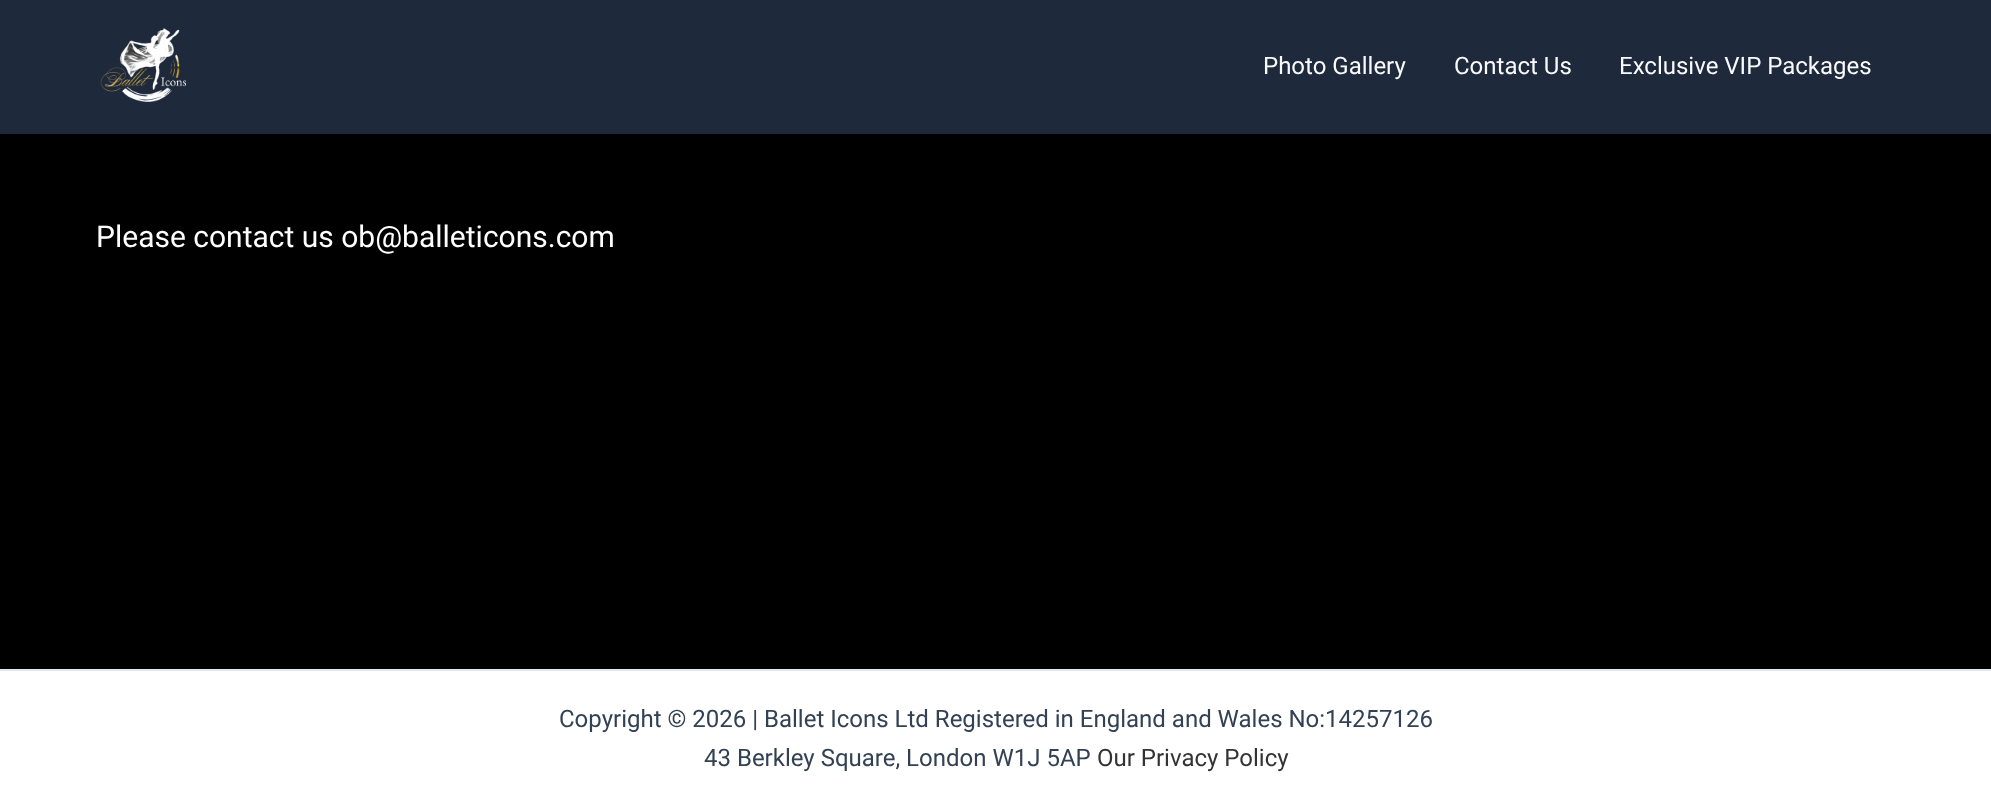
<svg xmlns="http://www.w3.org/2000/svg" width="1991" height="806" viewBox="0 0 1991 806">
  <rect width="100%" height="100%" fill="#000000"/>
  <rect x="0" y="0" width="1991" height="134" fill="#1e293b"/>
  <image x="100" y="28" width="86" height="74" href="img1.png"/>
  <text x="1263" y="74" font-family="Roboto" font-size="24" fill="#f9fafb">Photo Gallery</text>
  <text x="1454" y="74" font-family="Roboto" font-size="24" fill="#f9fafb">Contact Us</text>
  <text x="1619" y="74" font-family="Roboto" font-size="24" fill="#f9fafb">Exclusive VIP Packages</text>
  <text x="96" y="247" font-family="Roboto" font-size="30" fill="#ffffff">Please contact us ob@balleticons.com</text>
  <rect x="0" y="671" width="1991" height="135" fill="#ffffff"/>
  <rect x="0" y="669" width="1991" height="2" fill="#e2e8f0"/>
  <text x="559" y="727" font-family="Roboto" font-size="24" fill="#334155">Copyright © 2026 | Ballet Icons Ltd Registered in England and Wales No:14257126</text>
  <text x="704" y="766" font-family="Roboto" font-size="24" fill="#334155">43 Berkley Square, London W1J 5AP</text>
  <text x="1097" y="766" font-family="Roboto" font-size="24" fill="#333333">Our Privacy Policy</text>
</svg>
